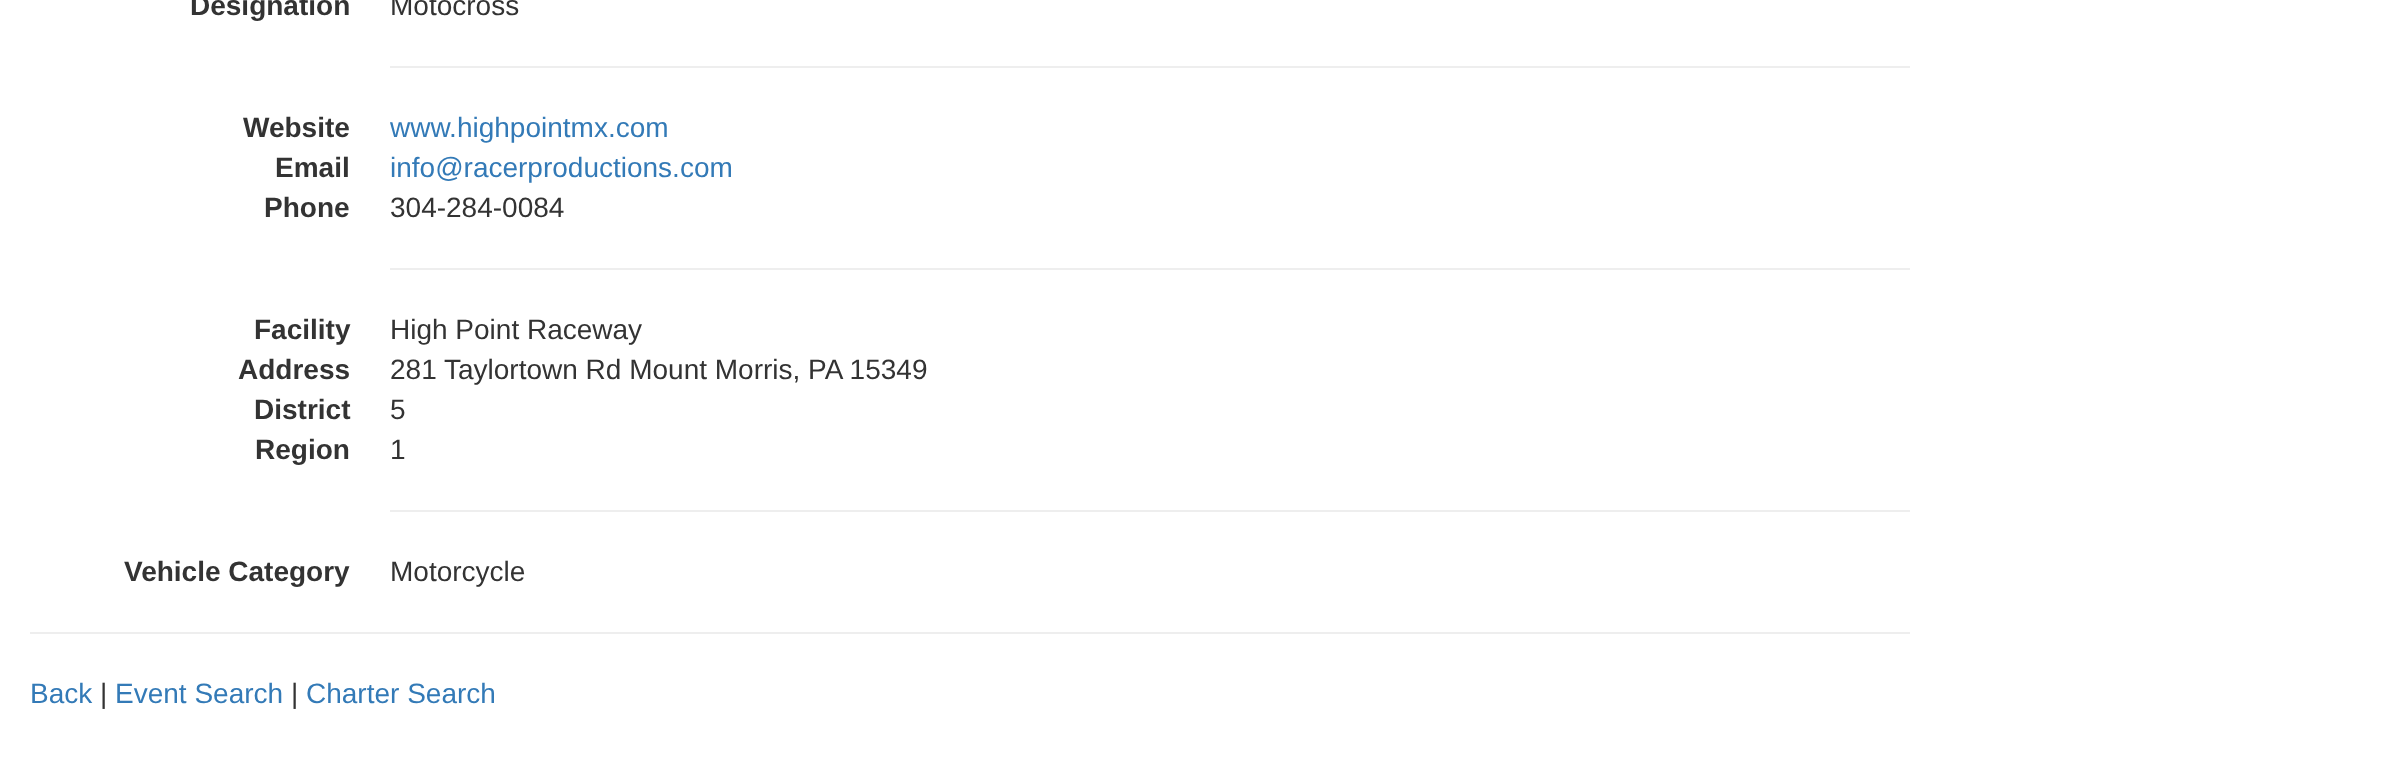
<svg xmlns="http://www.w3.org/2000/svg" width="2389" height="774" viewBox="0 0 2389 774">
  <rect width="100%" height="100%" fill="#ffffff"/>
  <text x="190" y="15" font-family="Liberation Sans" font-size="28" font-weight="bold" fill="#333333">Designation</text>
  <text x="390" y="15" font-family="Liberation Sans" font-size="28" fill="#333333">Motocross</text>
  <rect x="390" y="66" width="1520" height="2" fill="#eeeeee"/>
  <text x="243" y="137" font-family="Liberation Sans" font-size="28" font-weight="bold" fill="#333333">Website</text>
  <text x="390" y="137" font-family="Liberation Sans" font-size="28" fill="#337ab7">www.highpointmx.com</text>
  <text x="275" y="177" font-family="Liberation Sans" font-size="28" font-weight="bold" fill="#333333">Email</text>
  <text x="390" y="177" font-family="Liberation Sans" font-size="28" fill="#337ab7">info@racerproductions.com</text>
  <text x="264" y="217" font-family="Liberation Sans" font-size="28" font-weight="bold" fill="#333333">Phone</text>
  <text x="390" y="217" font-family="Liberation Sans" font-size="28" fill="#333333">304-284-0084</text>
  <rect x="390" y="268" width="1520" height="2" fill="#eeeeee"/>
  <text x="254" y="339" font-family="Liberation Sans" font-size="28" font-weight="bold" fill="#333333">Facility</text>
  <text x="390" y="339" font-family="Liberation Sans" font-size="28" fill="#333333">High Point Raceway</text>
  <text x="238" y="379" font-family="Liberation Sans" font-size="28" font-weight="bold" fill="#333333">Address</text>
  <text x="390" y="379" font-family="Liberation Sans" font-size="28" fill="#333333">281 Taylortown Rd Mount Morris, PA 15349</text>
  <text x="254" y="419" font-family="Liberation Sans" font-size="28" font-weight="bold" fill="#333333">District</text>
  <text x="390" y="419" font-family="Liberation Sans" font-size="28" fill="#333333">5</text>
  <text x="255" y="459" font-family="Liberation Sans" font-size="28" font-weight="bold" fill="#333333">Region</text>
  <text x="390" y="459" font-family="Liberation Sans" font-size="28" fill="#333333">1</text>
  <rect x="390" y="510" width="1520" height="2" fill="#eeeeee"/>
  <text x="124" y="581" font-family="Liberation Sans" font-size="28" font-weight="bold" fill="#333333">Vehicle Category</text>
  <text x="390" y="581" font-family="Liberation Sans" font-size="28" fill="#333333">Motorcycle</text>
  <rect x="30" y="632" width="1880" height="2" fill="#eeeeee"/>
  <text x="30" y="703" font-family="Liberation Sans" font-size="28" fill="#337ab7">Back</text>
  <text x="100" y="703" font-family="Liberation Sans" font-size="28" fill="#333333">|</text>
  <text x="115" y="703" font-family="Liberation Sans" font-size="28" fill="#337ab7">Event Search</text>
  <text x="291" y="703" font-family="Liberation Sans" font-size="28" fill="#333333">|</text>
  <text x="306" y="703" font-family="Liberation Sans" font-size="28" fill="#337ab7">Charter Search</text>
</svg>
